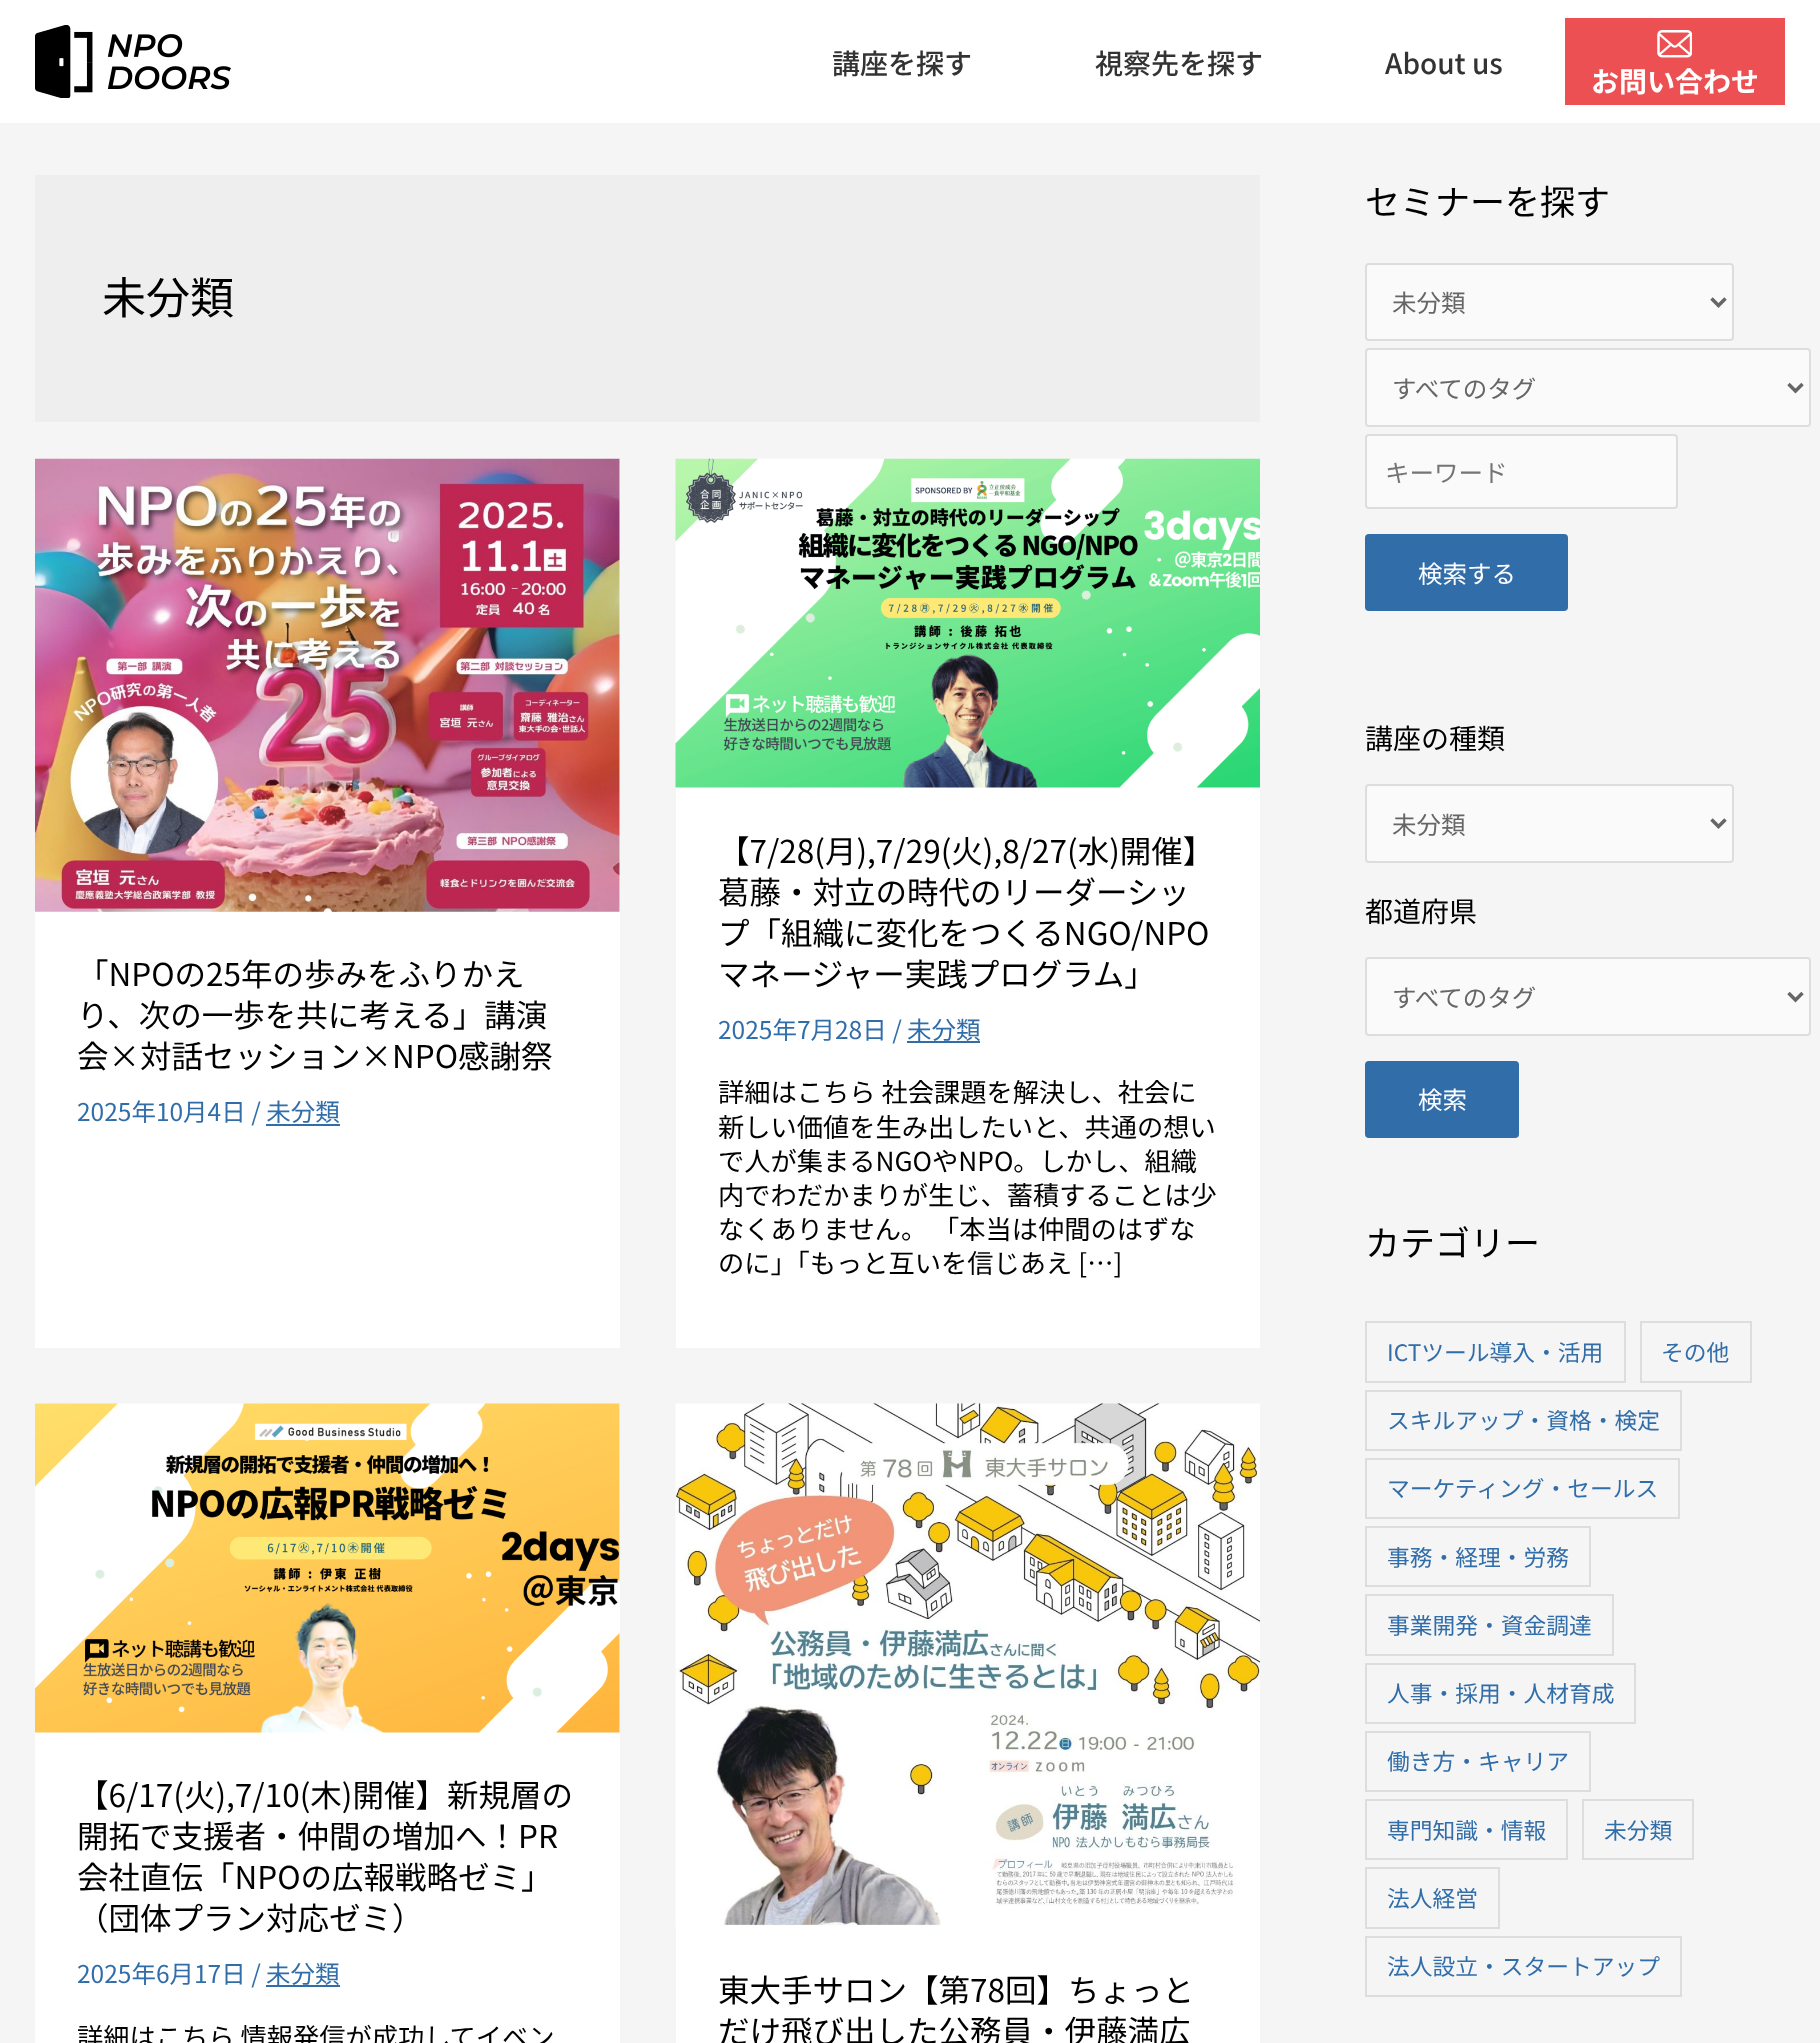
<svg xmlns="http://www.w3.org/2000/svg" width="1820" height="2043" viewBox="0 0 1820 2043">
  <rect width="100%" height="100%" fill="#f5f5f5"/>
  <rect x="0" y="0" width="1820" height="123" fill="#ffffff"/>
  <image x="35" y="25" width="196" height="73" href="img1.png"/>
  <text x="832" y="74" font-family="Noto Sans JP" font-size="28" font-weight="500" fill="#333333">講座を探す</text>
  <text x="1095" y="74" font-family="Noto Sans JP" font-size="28" font-weight="500" fill="#333333">視察先を探す</text>
  <text x="1385" y="74" font-family="Noto Sans JP" font-size="28" font-weight="500" fill="#333333">About us</text>
  <rect x="1565" y="18" width="220" height="87" fill="#ed5053"/>
  <image x="1657" y="30" width="35" height="28" href="img2.png"/>
  <text x="1591" y="92" font-family="Noto Sans JP" font-size="28" font-weight="bold" fill="#ffffff">お問い合わせ</text>
  <rect x="35" y="175" width="1225" height="247" fill="#eeeeee"/>
  <text x="102" y="314" font-family="Noto Sans JP" font-size="44" fill="#000000">未分類</text>
  <rect x="35" y="459" width="585" height="889" fill="#ffffff"/>
  <image x="35" y="458" width="585" height="454" href="img3.png"/>
  <text x="77" y="986" font-family="Noto Sans JP" font-size="31.5" fill="#000000">「NPOの25年の歩みをふりかえ</text>
  <text x="77" y="1027" font-family="Noto Sans JP" font-size="31.5" fill="#000000">り、次の一歩を共に考える」講演</text>
  <text x="77" y="1068" font-family="Noto Sans JP" font-size="31.5" fill="#000000">会×対話セッション×NPO感謝祭</text>
  <text x="77" y="1121" font-family="Noto Sans JP" font-size="24.5" fill="#316ea9">2025年10月4日 / 未分類</text>
  <rect x="266" y="1124" width="74" height="2" fill="#316ea9"/>
  <rect x="676" y="787" width="584" height="561" fill="#ffffff"/>
  <image x="675" y="458" width="585" height="330" href="img4.png"/>
  <text x="718" y="863" font-family="Noto Sans JP" font-size="31.5" fill="#000000">【7/28(月),7/29(火),8/27(水)開催】</text>
  <text x="718" y="904" font-family="Noto Sans JP" font-size="31.5" fill="#000000">葛藤・対立の時代のリーダーシッ</text>
  <text x="718" y="945" font-family="Noto Sans JP" font-size="31.5" fill="#000000">プ「組織に変化をつくるNGO/NPO</text>
  <text x="718" y="986" font-family="Noto Sans JP" font-size="31.5" fill="#000000">マネージャー実践プログラム」</text>
  <text x="718" y="1039" font-family="Noto Sans JP" font-size="24.5" fill="#316ea9">2025年7月28日 /</text>
  <rect x="907" y="1041" width="73" height="2" fill="#316ea9"/>
  <text x="907" y="1039" font-family="Noto Sans JP" font-size="24.5" fill="#316ea9">未分類</text>
  <text x="718" y="1102" font-family="Noto Sans JP" font-size="26.25" fill="#000000">詳細はこちら 社会課題を解決し、社会に</text>
  <text x="718" y="1137" font-family="Noto Sans JP" font-size="26.25" fill="#000000">新しい価値を生み出したいと、共通の想い</text>
  <text x="718" y="1171" font-family="Noto Sans JP" font-size="26.25" fill="#000000">で人が集まるNGOやNPO。しかし、組織</text>
  <text x="718" y="1205" font-family="Noto Sans JP" font-size="26.25" fill="#000000">内でわだかまりが生じ、蓄積することは少</text>
  <text x="718" y="1239" font-family="Noto Sans JP" font-size="26.25" fill="#000000">なくありません。 「本当は仲間のはずな</text>
  <text x="718" y="1273" font-family="Noto Sans JP" font-size="26.25" fill="#000000">のに」「もっと互いを信じあえ […]</text>
  <rect x="35" y="1404" width="585" height="639" fill="#ffffff"/>
  <image x="35" y="1403" width="585" height="330" href="img5.png"/>
  <text x="77" y="1807" font-family="Noto Sans JP" font-size="31.5" fill="#000000">【6/17(火),7/10(木)開催】新規層の</text>
  <text x="77" y="1848" font-family="Noto Sans JP" font-size="31.5" fill="#000000">開拓で支援者・仲間の増加へ！PR</text>
  <text x="77" y="1889" font-family="Noto Sans JP" font-size="31.5" fill="#000000">会社直伝「NPOの広報戦略ゼミ」</text>
  <text x="77" y="1930" font-family="Noto Sans JP" font-size="31.5" fill="#000000">（団体プラン対応ゼミ）</text>
  <text x="77" y="1983" font-family="Noto Sans JP" font-size="24.5" fill="#316ea9">2025年6月17日 /</text>
  <rect x="266" y="1985" width="74" height="2" fill="#316ea9"/>
  <text x="266" y="1983" font-family="Noto Sans JP" font-size="24.5" fill="#316ea9">未分類</text>
  <text x="77" y="2047" font-family="Noto Sans JP" font-size="26.25" fill="#000000">詳細はこちら 情報発信が成功してイベン</text>
  <rect x="676" y="1926" width="584" height="117" fill="#ffffff"/>
  <image x="675" y="1403" width="585" height="523" href="img6.png"/>
  <text x="718" y="2002" font-family="Noto Sans JP" font-size="31.5" fill="#000000">東大手サロン【第78回】ちょっと</text>
  <text x="718" y="2043" font-family="Noto Sans JP" font-size="31.5" fill="#000000">だけ飛び出した公務員・伊藤満広</text>
  <text x="1365" y="215" font-family="Noto Sans JP" font-size="35" fill="#000000">セミナーを探す</text>
  <rect x="1366" y="264" width="367" height="76" rx="3" fill="#fafafa" stroke="#dddddd" stroke-width="2"/>
  <path d="M1711.5 298.5L1718.5 305.5L1725.5 298.5" fill="none" stroke="#666666" stroke-width="3.5"/>
  <text x="1392" y="312" font-family="Noto Sans JP" font-size="24.5" fill="#666666">未分類</text>
  <rect x="1366" y="349" width="444" height="77" rx="3" fill="#fafafa" stroke="#dddddd" stroke-width="2"/>
  <path d="M1788.5 384L1795.5 391L1802.5 384" fill="none" stroke="#666666" stroke-width="3.5"/>
  <text x="1392" y="398" font-family="Noto Sans JP" font-size="24.5" fill="#666666">すべてのタグ</text>
  <rect x="1366" y="435" width="311" height="73" rx="3" fill="#fafafa" stroke="#dddddd" stroke-width="2"/>
  <text x="1385" y="482" font-family="Noto Sans JP" font-size="24.5" fill="#757575">キーワード</text>
  <rect x="1365" y="534" width="203" height="77" rx="4" fill="#316ea9"/>
  <text x="1418" y="583" font-family="Noto Sans JP" font-size="24.5" fill="#ffffff">検索する</text>
  <text x="1365" y="749" font-family="Noto Sans JP" font-size="28" fill="#000000">講座の種類</text>
  <rect x="1366" y="785" width="367" height="77" rx="3" fill="#fafafa" stroke="#dddddd" stroke-width="2"/>
  <path d="M1711.5 819.5L1718.5 826.5L1725.5 819.5" fill="none" stroke="#666666" stroke-width="3.5"/>
  <text x="1392" y="834" font-family="Noto Sans JP" font-size="24.5" fill="#666666">未分類</text>
  <text x="1365" y="922" font-family="Noto Sans JP" font-size="28" fill="#000000">都道府県</text>
  <rect x="1366" y="958" width="444" height="77" rx="3" fill="#fafafa" stroke="#dddddd" stroke-width="2"/>
  <path d="M1788.5 993L1795.5 1000L1802.5 993" fill="none" stroke="#666666" stroke-width="3.5"/>
  <text x="1392" y="1007" font-family="Noto Sans JP" font-size="24.5" fill="#666666">すべてのタグ</text>
  <rect x="1365" y="1061" width="154" height="77" rx="4" fill="#316ea9"/>
  <text x="1418" y="1109" font-family="Noto Sans JP" font-size="24.5" fill="#ffffff">検索</text>
  <text x="1365" y="1256" font-family="Noto Sans JP" font-size="35" fill="#000000">カテゴリー</text>
  <rect x="1366" y="1322" width="259" height="60" fill="none" stroke="#dddddd" stroke-width="2"/>
  <text x="1387" y="1361" font-family="Noto Sans JP" font-size="22.75" fill="#316ea9">ICTツール導入・活用</text>
  <rect x="1641" y="1322" width="110" height="60" fill="none" stroke="#dddddd" stroke-width="2"/>
  <text x="1661" y="1361" font-family="Noto Sans JP" font-size="22.75" fill="#316ea9">その他</text>
  <rect x="1366" y="1391" width="315" height="59" fill="none" stroke="#dddddd" stroke-width="2"/>
  <text x="1387" y="1429" font-family="Noto Sans JP" font-size="22.75" fill="#316ea9">スキルアップ・資格・検定</text>
  <rect x="1366" y="1459" width="313" height="59" fill="none" stroke="#dddddd" stroke-width="2"/>
  <text x="1387" y="1497" font-family="Noto Sans JP" font-size="22.75" fill="#316ea9">マーケティング・セールス</text>
  <rect x="1366" y="1527" width="224" height="59" fill="none" stroke="#dddddd" stroke-width="2"/>
  <text x="1387" y="1566" font-family="Noto Sans JP" font-size="22.75" fill="#316ea9">事務・経理・労務</text>
  <rect x="1366" y="1595" width="247" height="60" fill="none" stroke="#dddddd" stroke-width="2"/>
  <text x="1387" y="1634" font-family="Noto Sans JP" font-size="22.75" fill="#316ea9">事業開発・資金調達</text>
  <rect x="1366" y="1664" width="269" height="59" fill="none" stroke="#dddddd" stroke-width="2"/>
  <text x="1387" y="1702" font-family="Noto Sans JP" font-size="22.75" fill="#316ea9">人事・採用・人材育成</text>
  <rect x="1366" y="1732" width="224" height="59" fill="none" stroke="#dddddd" stroke-width="2"/>
  <text x="1387" y="1770" font-family="Noto Sans JP" font-size="22.75" fill="#316ea9">働き方・キャリア</text>
  <rect x="1366" y="1800" width="201" height="59" fill="none" stroke="#dddddd" stroke-width="2"/>
  <text x="1387" y="1839" font-family="Noto Sans JP" font-size="22.75" fill="#316ea9">専門知識・情報</text>
  <rect x="1583" y="1800" width="110" height="59" fill="none" stroke="#dddddd" stroke-width="2"/>
  <text x="1604" y="1839" font-family="Noto Sans JP" font-size="22.75" fill="#316ea9">未分類</text>
  <rect x="1366" y="1868" width="133" height="60" fill="none" stroke="#dddddd" stroke-width="2"/>
  <text x="1387" y="1907" font-family="Noto Sans JP" font-size="22.75" fill="#316ea9">法人経営</text>
  <rect x="1366" y="1937" width="315" height="59" fill="none" stroke="#dddddd" stroke-width="2"/>
  <text x="1387" y="1975" font-family="Noto Sans JP" font-size="22.75" fill="#316ea9">法人設立・スタートアップ</text>
</svg>
